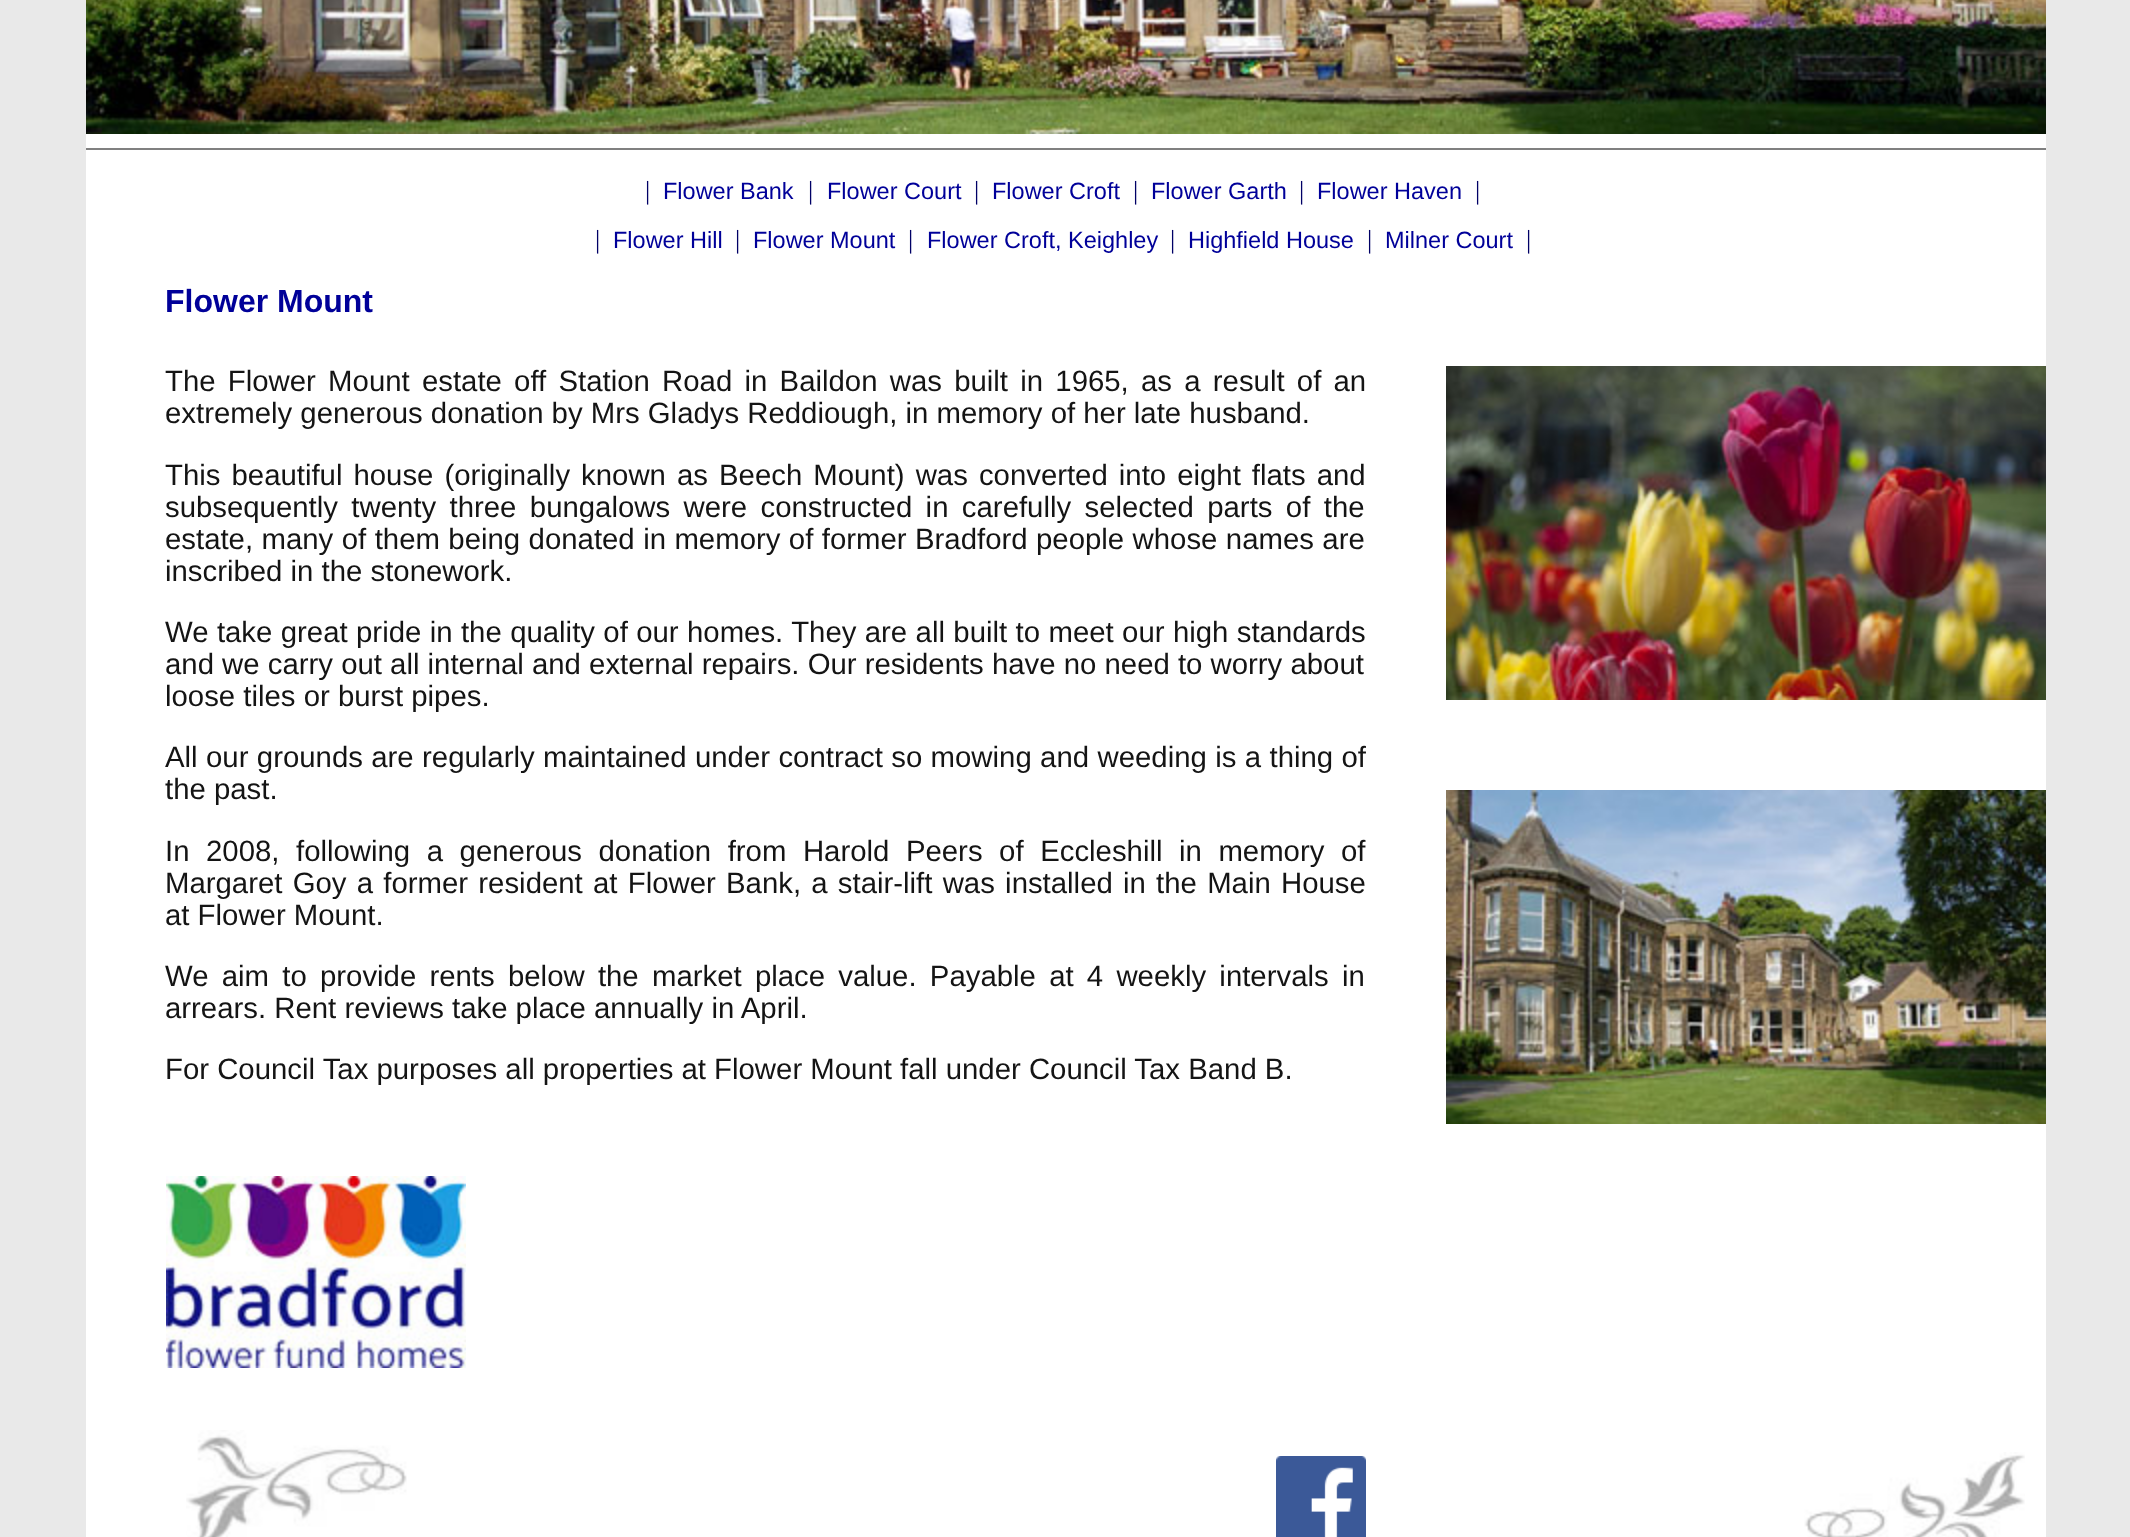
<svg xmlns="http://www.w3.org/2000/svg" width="2130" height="1537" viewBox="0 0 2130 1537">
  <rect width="100%" height="100%" fill="#e9e9e9"/>
  <image x="86" y="0" width="1960" height="134" href="img1.png"/>
  <rect x="86" y="134" width="1960" height="32" fill="#ffffff"/>
  <rect x="86" y="148" width="1960" height="2" fill="#808080"/>
  <rect x="86" y="166" width="1960" height="100" fill="#ffffff"/>
  <text x="645" y="199" font-family="Liberation Serif" font-size="26" fill="#000066">|</text>
  <text x="663" y="199" font-family="Liberation Sans" font-size="23.5" fill="#000099">Flower Bank</text>
  <text x="808" y="199" font-family="Liberation Serif" font-size="26" fill="#000066">|</text>
  <text x="827" y="199" font-family="Liberation Sans" font-size="23.5" fill="#000099">Flower Court</text>
  <text x="974" y="199" font-family="Liberation Serif" font-size="26" fill="#000066">|</text>
  <text x="992" y="199" font-family="Liberation Sans" font-size="23.5" fill="#000099">Flower Croft</text>
  <text x="1133" y="199" font-family="Liberation Serif" font-size="26" fill="#000066">|</text>
  <text x="1151" y="199" font-family="Liberation Sans" font-size="23.5" fill="#000099">Flower Garth</text>
  <text x="1299" y="199" font-family="Liberation Serif" font-size="26" fill="#000066">|</text>
  <text x="1317" y="199" font-family="Liberation Sans" font-size="23.5" fill="#000099">Flower Haven</text>
  <text x="1475" y="199" font-family="Liberation Serif" font-size="26" fill="#000066">|</text>
  <text x="595" y="248" font-family="Liberation Serif" font-size="26" fill="#000066">|</text>
  <text x="613" y="248" font-family="Liberation Sans" font-size="23.5" fill="#000099">Flower Hill</text>
  <text x="735" y="248" font-family="Liberation Serif" font-size="26" fill="#000066">|</text>
  <text x="753" y="248" font-family="Liberation Sans" font-size="23.5" fill="#000099">Flower Mount</text>
  <text x="908" y="248" font-family="Liberation Serif" font-size="26" fill="#000066">|</text>
  <text x="927" y="248" font-family="Liberation Sans" font-size="23.5" fill="#000099">Flower Croft, Keighley</text>
  <text x="1170" y="248" font-family="Liberation Serif" font-size="26" fill="#000066">|</text>
  <text x="1188" y="248" font-family="Liberation Sans" font-size="23.5" fill="#000099">Highfield House</text>
  <text x="1367" y="248" font-family="Liberation Serif" font-size="26" fill="#000066">|</text>
  <text x="1385" y="248" font-family="Liberation Sans" font-size="23.5" fill="#000099">Milner Court</text>
  <text x="1526" y="248" font-family="Liberation Serif" font-size="26" fill="#000066">|</text>
  <rect x="86" y="266" width="80" height="1271" fill="#ffffff"/>
  <rect x="166" y="266" width="1880" height="100" fill="#ffffff"/>
  <text x="165" y="312" font-family="Liberation Sans" font-size="32" font-weight="bold" fill="#000099">Flower Mount</text>
  <rect x="166" y="366" width="1880" height="1064" fill="#ffffff"/>
  <text x="165" y="391" word-spacing="4.1" font-family="Liberation Sans" font-size="29.35" fill="#141414">The Flower Mount estate off Station Road in Baildon was built in 1965, as a result of an</text>
  <text x="165" y="423" font-family="Liberation Sans" font-size="29.35" fill="#141414">extremely generous donation by Mrs Gladys Reddiough, in memory of her late husband.</text>
  <text x="165" y="485" word-spacing="2.9" font-family="Liberation Sans" font-size="29.35" fill="#141414">This beautiful house (originally known as Beech Mount) was converted into eight flats and</text>
  <text x="165" y="517" word-spacing="5.25" font-family="Liberation Sans" font-size="29.35" fill="#141414">subsequently twenty three bungalows were constructed in carefully selected parts of the</text>
  <text x="165" y="549" word-spacing="0.3" font-family="Liberation Sans" font-size="29.35" fill="#141414">estate, many of them being donated in memory of former Bradford people whose names are</text>
  <text x="165" y="581" font-family="Liberation Sans" font-size="29.35" fill="#141414">inscribed in the stonework.</text>
  <text x="165" y="642" word-spacing="0.25" font-family="Liberation Sans" font-size="29.35" fill="#141414">We take great pride in the quality of our homes. They are all built to meet our high standards</text>
  <text x="165" y="674" font-family="Liberation Sans" font-size="29.35" fill="#141414">and we carry out all internal and external repairs. Our residents have no need to worry about</text>
  <text x="165" y="706" font-family="Liberation Sans" font-size="29.35" fill="#141414">loose tiles or burst pipes.</text>
  <text x="165" y="767" word-spacing="0.25" font-family="Liberation Sans" font-size="29.35" fill="#141414">All our grounds are regularly maintained under contract so mowing and weeding is a thing of</text>
  <text x="165" y="799" font-family="Liberation Sans" font-size="29.35" fill="#141414">the past.</text>
  <text x="165" y="861" word-spacing="8.4" font-family="Liberation Sans" font-size="29.35" fill="#141414">In 2008, following a generous donation from Harold Peers of Eccleshill in memory of</text>
  <text x="165" y="893" word-spacing="2.1" font-family="Liberation Sans" font-size="29.35" fill="#141414">Margaret Goy a former resident at Flower Bank, a stair-lift was installed in the Main House</text>
  <text x="165" y="925" font-family="Liberation Sans" font-size="29.35" fill="#141414">at Flower Mount.</text>
  <text x="165" y="986" word-spacing="5.1" font-family="Liberation Sans" font-size="29.35" fill="#141414">We aim to provide rents below the market place value. Payable at 4 weekly intervals in</text>
  <text x="165" y="1018" font-family="Liberation Sans" font-size="29.35" fill="#141414">arrears. Rent reviews take place annually in April.</text>
  <text x="165" y="1079" font-family="Liberation Sans" font-size="29.35" fill="#141414">For Council Tax purposes all properties at Flower Mount fall under Council Tax Band B.</text>
  <image x="166" y="1176" width="300" height="192" href="img2.png"/>
  <image x="1446" y="366" width="600" height="334" href="img3.png"/>
  <image x="1446" y="790" width="600" height="334" href="img4.png"/>
  <rect x="166" y="1430" width="1880" height="107" fill="#ffffff"/>
  <image x="186" y="1430" width="221" height="107" href="img5.png"/>
  <image x="1276" y="1456" width="90" height="81" href="img6.png"/>
  <image x="1804" y="1452" width="221" height="85" href="img7.png"/>
</svg>
